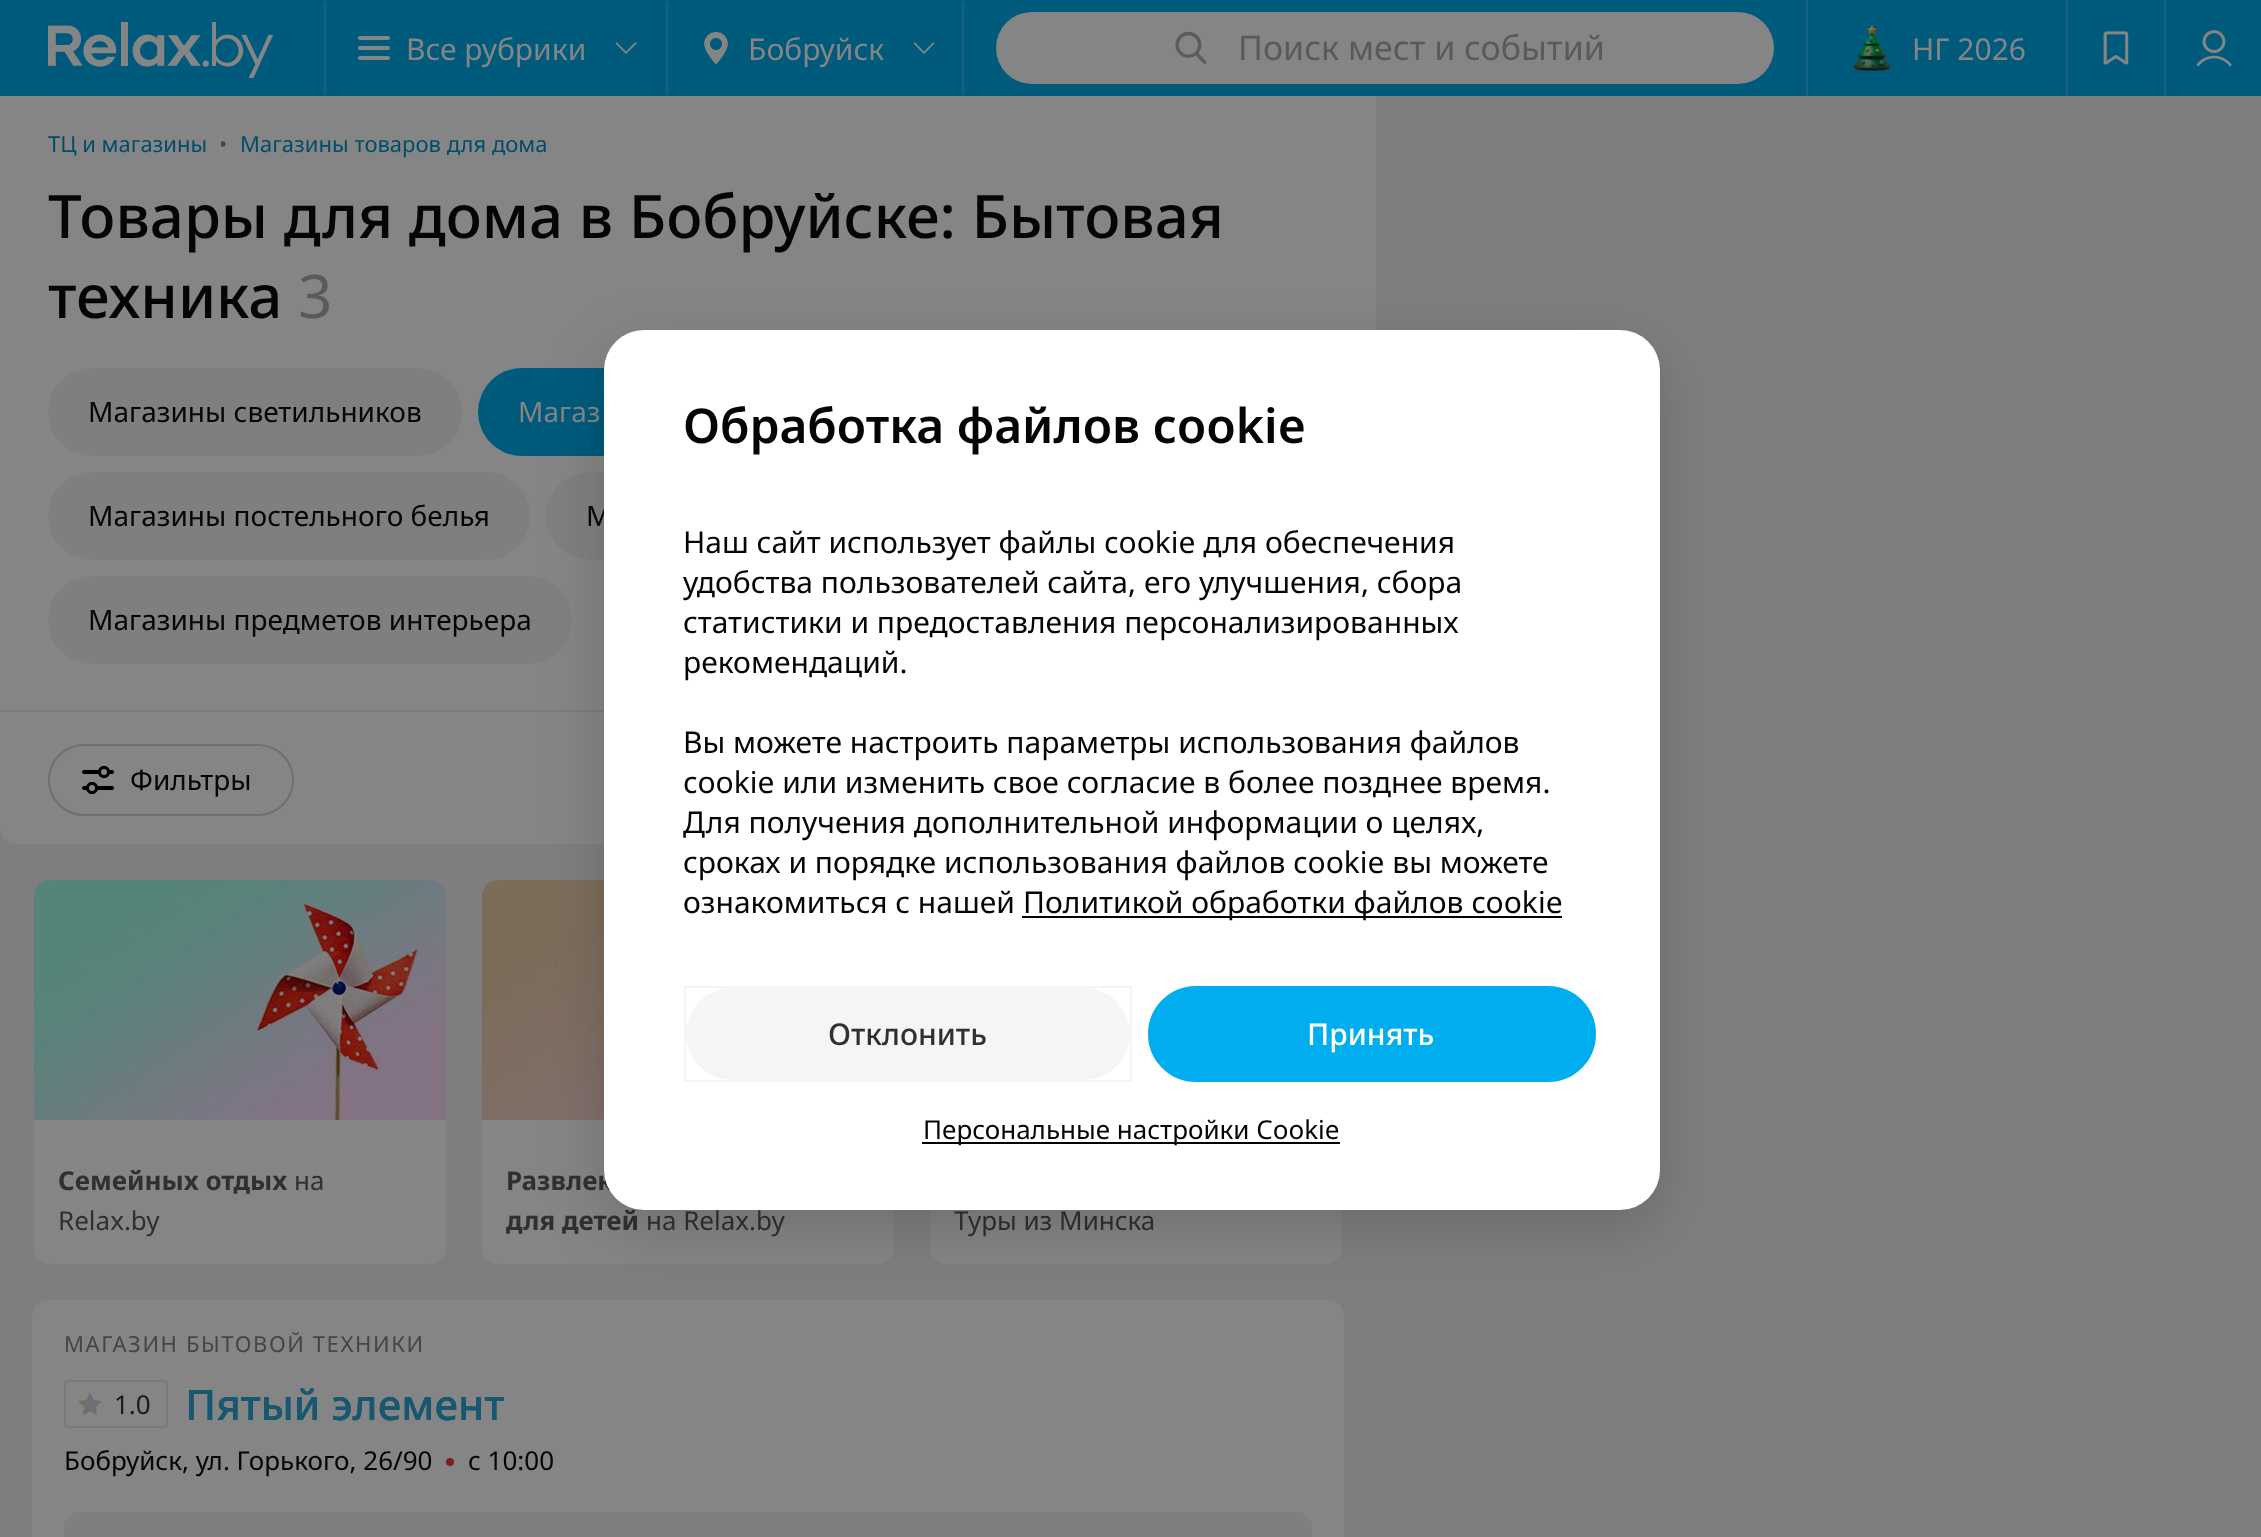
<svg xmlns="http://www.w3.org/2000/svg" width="2261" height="1537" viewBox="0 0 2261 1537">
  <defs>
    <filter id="blur1" x="-50%" y="-200%" width="200%" height="500%"><feGaussianBlur stdDeviation="30"/></filter>
  </defs>
  <rect width="100%" height="100%" fill="#7e7e7e"/>
  <rect x="0" y="0" width="2261" height="96" fill="#005a7c"/>
  <image x="48" y="22" width="226" height="56" href="img1.png"/>
  <rect x="666" y="2" width="2" height="92" fill="#15617e"/>
  <rect x="324" y="2" width="2" height="92" fill="#15617e"/>
  <image x="358" y="36" width="32" height="24" href="img2.png"/>
  <text x="406" y="60" font-family="Noto Sans" font-size="30" fill="#858585">Все рубрики</text>
  <path d="M626 54L615.5 43.5L616.5 42L626 51.5L635.5 42L636.5 43.5Z" fill="#858585"/>
  <image x="704" y="32" width="24" height="32" href="img3.png"/>
  <text x="748" y="60" font-family="Noto Sans" font-size="30" fill="#858585">Бобруйск</text>
  <path d="M924 54L913.5 43.5L914.5 42L924 51.5L933.5 42L934.5 43.5Z" fill="#858585"/>
  <rect x="962" y="2" width="2" height="92" fill="#15617e"/>
  <rect x="996" y="12" width="778" height="72" rx="36" fill="#858585"/>
  <image x="1175" y="31" width="32" height="33" href="img4.png"/>
  <text x="1238" y="60" font-family="Noto Sans" font-size="34" fill="#5a5a5a">Поиск мест и событий</text>
  <rect x="1806" y="0" width="2" height="96" fill="#15617e"/>
  <image x="1853" y="24" width="38" height="48" href="img5.png"/>
  <text x="1912" y="60" font-family="Noto Sans" font-size="30" fill="#858585">НГ 2026</text>
  <rect x="2066" y="0" width="2" height="96" fill="#15617e"/>
  <image x="2103" y="31" width="26" height="34" href="img6.png"/>
  <rect x="2164" y="0" width="2" height="96" fill="#15617e"/>
  <image x="2196" y="30" width="36" height="37" href="img7.png"/>
  <rect x="0" y="96" width="1376" height="614" fill="#858585"/>
  <text x="48" y="152" font-family="Noto Sans" font-size="22" fill="#004d6a">ТЦ и магазины</text>
  <text x="219" y="152" font-family="Noto Sans" font-size="22" fill="#454545">•</text>
  <text x="240" y="152" font-family="Noto Sans" font-size="22" fill="#004d6a">Магазины товаров для дома</text>
  <text x="48" y="238" font-family="Noto Sans" font-size="60" font-weight="500" fill="#050505">Товары для дома в Бобруйске: Бытовая</text>
  <text x="48" y="318" font-family="Noto Sans" font-size="60" font-weight="500" fill="#050505">техника</text>
  <text x="298" y="318" font-family="Noto Sans" font-size="60" fill="#5a5a5a">3</text>
  <rect x="48" y="368" width="414" height="88" rx="44" fill="#7f7f7f"/>
  <text x="88" y="422" font-family="Noto Sans" font-size="28" fill="#050505">Магазины светильников</text>
  <rect x="478" y="368" width="458" height="88" rx="44" fill="#005a7c"/>
  <text x="518" y="422" font-family="Noto Sans" font-size="28" fill="#858585">Магаз</text>
  <rect x="48" y="472" width="482" height="88" rx="44" fill="#7f7f7f"/>
  <text x="88" y="526" font-family="Noto Sans" font-size="28" fill="#050505">Магазины постельного белья</text>
  <rect x="546" y="472" width="328" height="88" rx="44" fill="#7f7f7f"/>
  <text x="586" y="526" font-family="Noto Sans" font-size="28" fill="#050505">М</text>
  <rect x="48" y="576" width="524" height="88" rx="44" fill="#7f7f7f"/>
  <text x="88" y="630" font-family="Noto Sans" font-size="28" fill="#050505">Магазины предметов интерьера</text>
  <rect x="0" y="710" width="604" height="2" fill="#7a7a7a"/>
  <path d="M0 712H1376V828C1376 837 1369 844 1360 844H16C7 844 0 837 0 828Z" fill="#858585"/>
  <rect x="49" y="745" width="244" height="70" rx="35" fill="none" stroke="#6f6f6f" stroke-width="2"/>
  <image x="82" y="765" width="32" height="30" href="img8.png"/>
  <text x="130" y="790" font-family="Noto Sans" font-size="28" fill="#050505">Фильтры</text>
  <rect x="34" y="880" width="412" height="384" rx="16" fill="#858585"/>
  <image x="34" y="880" width="412" height="240" href="img9.png"/>
  <text x="58" y="1190" font-family="Noto Sans" font-size="26" font-weight="bold" fill="#303030">Семейных отдых</text>
  <text x="294" y="1190" font-family="Noto Sans" font-size="26" fill="#303030">на</text>
  <text x="58" y="1230" font-family="Noto Sans" font-size="26" fill="#303030">Relax.by</text>
  <rect x="482" y="880" width="412" height="384" rx="16" fill="#858585"/>
  <image x="482" y="880" width="122" height="240" href="img10.png"/>
  <text x="506" y="1190" font-family="Noto Sans" font-size="26" font-weight="bold" fill="#303030">Развлек</text>
  <text x="506" y="1230" font-family="Noto Sans" font-size="26" font-weight="bold" fill="#303030">для детей</text>
  <text x="646" y="1230" font-family="Noto Sans" font-size="26" fill="#303030">на Relax.by</text>
  <rect x="930" y="880" width="412" height="384" rx="16" fill="#858585"/>
  <text x="954" y="1230" font-family="Noto Sans" font-size="26" fill="#303030">Туры из Минска</text>
  <rect x="32" y="1300" width="1312" height="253" rx="16" fill="#858585"/>
  <text x="64" y="1352" font-family="Noto Sans" font-size="22" letter-spacing="1.6" fill="#454545">МАГАЗИН БЫТОВОЙ ТЕХНИКИ</text>
  <rect x="65" y="1381" width="102" height="46" rx="3" fill="none" stroke="#7a7a7a" stroke-width="2"/>
  <image x="79" y="1393" width="22" height="22" href="img11.png"/>
  <image x="79" y="1400" width="3" height="5" href="img12.png"/>
  <text x="114" y="1414" font-family="Noto Sans" font-size="26" fill="#1b1b1b">1.0</text>
  <text x="185" y="1420" font-family="Noto Sans" font-size="42" font-weight="500" fill="#004d6a">Пятый элемент</text>
  <text x="185" y="1420" font-family="Noto Sans" font-size="42" font-weight="500" fill="#17576f">Пятый элемент</text>
  <text x="64" y="1470" font-family="Noto Sans" font-size="26" fill="#050505">Бобруйск, ул. Горького, 26/90</text>
  <circle cx="450" cy="1462" r="4" fill="#7b2323"/>
  <text x="468" y="1470" font-family="Noto Sans" font-size="26" fill="#050505">с 10:00</text>
  <rect x="64" y="1512" width="1248" height="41" rx="16" fill="#7f7f7f"/>
  <rect x="604" y="350" width="1056" height="880" rx="40" fill="#000000" fill-opacity="0.16" filter="url(#blur1)"/>
  <rect x="604" y="330" width="1056" height="880" rx="40" fill="#ffffff"/>
  <text x="683" y="443" font-family="Noto Sans" font-size="48" font-weight="600" fill="#050505">Обработка файлов cookie</text>
  <text x="683" y="553" font-family="Noto Sans" font-size="30" fill="#050505">Наш сайт использует файлы cookie для обеспечения</text>
  <text x="683" y="593" font-family="Noto Sans" font-size="30" fill="#050505">удобства пользователей сайта, его улучшения, сбора</text>
  <text x="683" y="633" font-family="Noto Sans" font-size="30" fill="#050505">статистики и предоставления персонализированных</text>
  <text x="683" y="673" font-family="Noto Sans" font-size="30" fill="#050505">рекомендаций.</text>
  <text x="683" y="753" font-family="Noto Sans" font-size="30" fill="#050505">Вы можете настроить параметры использования файлов</text>
  <text x="683" y="793" font-family="Noto Sans" font-size="30" fill="#050505">cookie или изменить свое согласие в более позднее время.</text>
  <text x="683" y="833" font-family="Noto Sans" font-size="30" fill="#050505">Для получения дополнительной информации о целях,</text>
  <text x="683" y="873" font-family="Noto Sans" font-size="30" fill="#050505">сроках и порядке использования файлов cookie вы можете</text>
  <text x="683" y="913" font-family="Noto Sans" font-size="30" fill="#050505">ознакомиться с нашей</text>
  <rect x="1022" y="916" width="540" height="2" fill="#000000"/>
  <text x="1023" y="913" font-family="Noto Sans" font-size="30" fill="#050505">Политикой обработки файлов cookie</text>
  <rect x="686" y="988" width="444" height="92" rx="46" fill="#f5f5f5"/>
  <rect x="685" y="987" width="446" height="94" fill="none" stroke="#000000" stroke-opacity="0.04" stroke-width="2"/>
  <text x="828" y="1045" font-family="Noto Sans" font-size="30" font-weight="500" fill="#303030">Отклонить</text>
  <rect x="1149" y="987" width="446" height="94" rx="47" fill="#00aeef" stroke="#00aeef" stroke-width="2"/>
  <text x="1307" y="1045" font-family="Noto Sans" font-size="30" font-weight="500" fill="#ffffff">Принять</text>
  <rect x="922" y="1142" width="418" height="2" fill="#000000"/>
  <text x="923" y="1139" font-family="Noto Sans" font-size="26" fill="#050505">Персональные настройки Cookie</text>
</svg>
